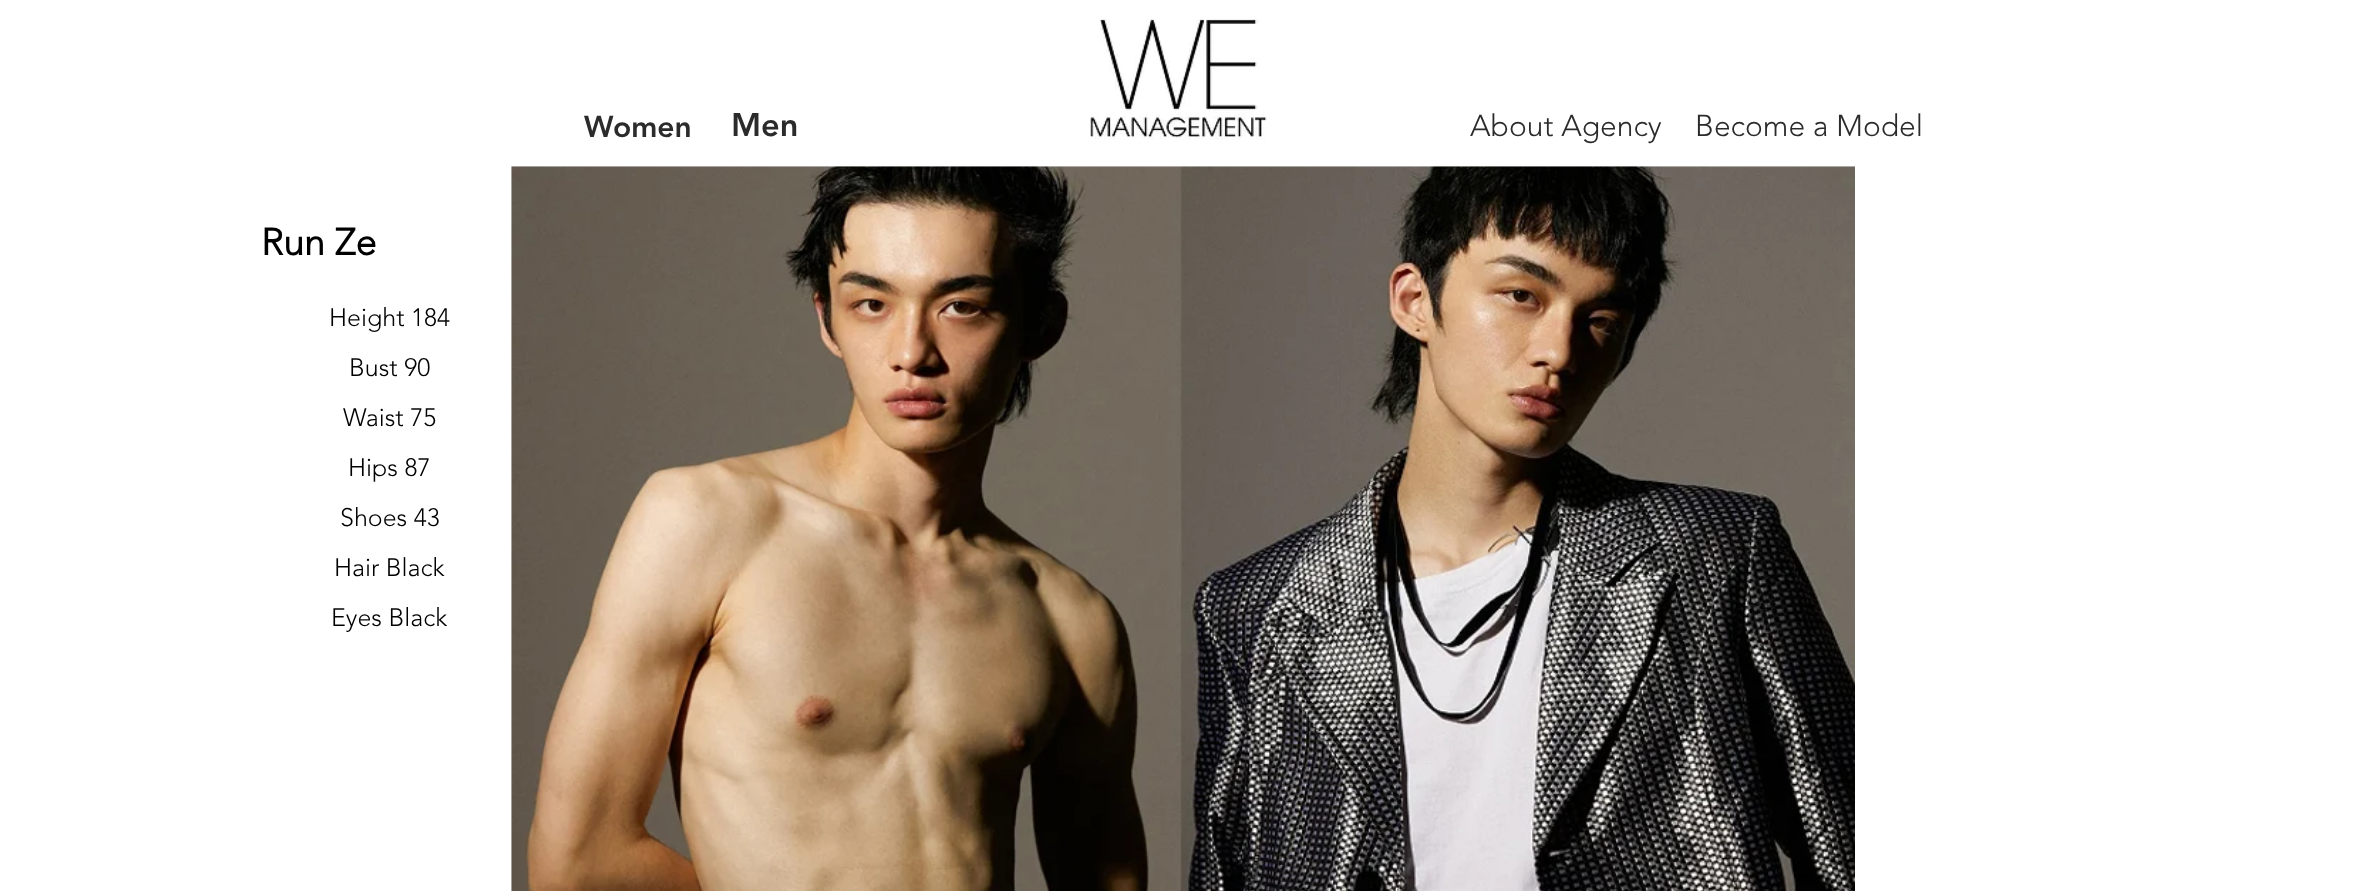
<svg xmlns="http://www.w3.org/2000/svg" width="2364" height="891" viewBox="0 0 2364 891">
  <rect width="100%" height="100%" fill="#ffffff"/>
  <text x="584" y="137" font-family="'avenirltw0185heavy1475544'" font-size="30" font-weight="900" fill="#2b2b2b">Women</text>
  <text x="731" y="136" font-family="'avenirltw0185heavy1475544'" font-size="32.5" font-weight="900" fill="#2b2b2b">Men</text>
  <image x="1090" y="19" width="177" height="121" href="img1.png"/>
  <text x="1470" y="136" font-family="'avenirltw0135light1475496'" font-size="30" font-weight="300" fill="#2b2b2b">About Agency</text>
  <text x="1695" y="136" font-family="'avenirltw0135light1475496'" font-size="30" font-weight="300" fill="#2b2b2b">Become a Model</text>
  <text x="261" y="255" font-family="'avenirltw0135light1475496'" font-size="37.5" font-weight="bold" fill="#000000">Run Ze</text>
  <image x="511" y="166" width="1344" height="725" href="img2.png"/>
  <text x="329" y="326" font-family="'avenirltw0135light1475496'" font-size="25" font-weight="300" fill="#000000">Height 184</text>
  <text x="349" y="376" font-family="'avenirltw0135light1475496'" font-size="25" font-weight="300" fill="#000000">Bust 90</text>
  <text x="343" y="426" font-family="'avenirltw0135light1475496'" font-size="25" font-weight="300" fill="#000000">Waist 75</text>
  <text x="348" y="476" font-family="'avenirltw0135light1475496'" font-size="25" font-weight="300" fill="#000000">Hips 87</text>
  <text x="340" y="526" font-family="'avenirltw0135light1475496'" font-size="25" font-weight="300" fill="#000000">Shoes 43</text>
  <text x="334" y="576" font-family="'avenirltw0135light1475496'" font-size="25" font-weight="300" fill="#000000">Hair Black</text>
  <text x="331" y="626" font-family="'avenirltw0135light1475496'" font-size="25" font-weight="300" fill="#000000">Eyes Black</text>
</svg>
